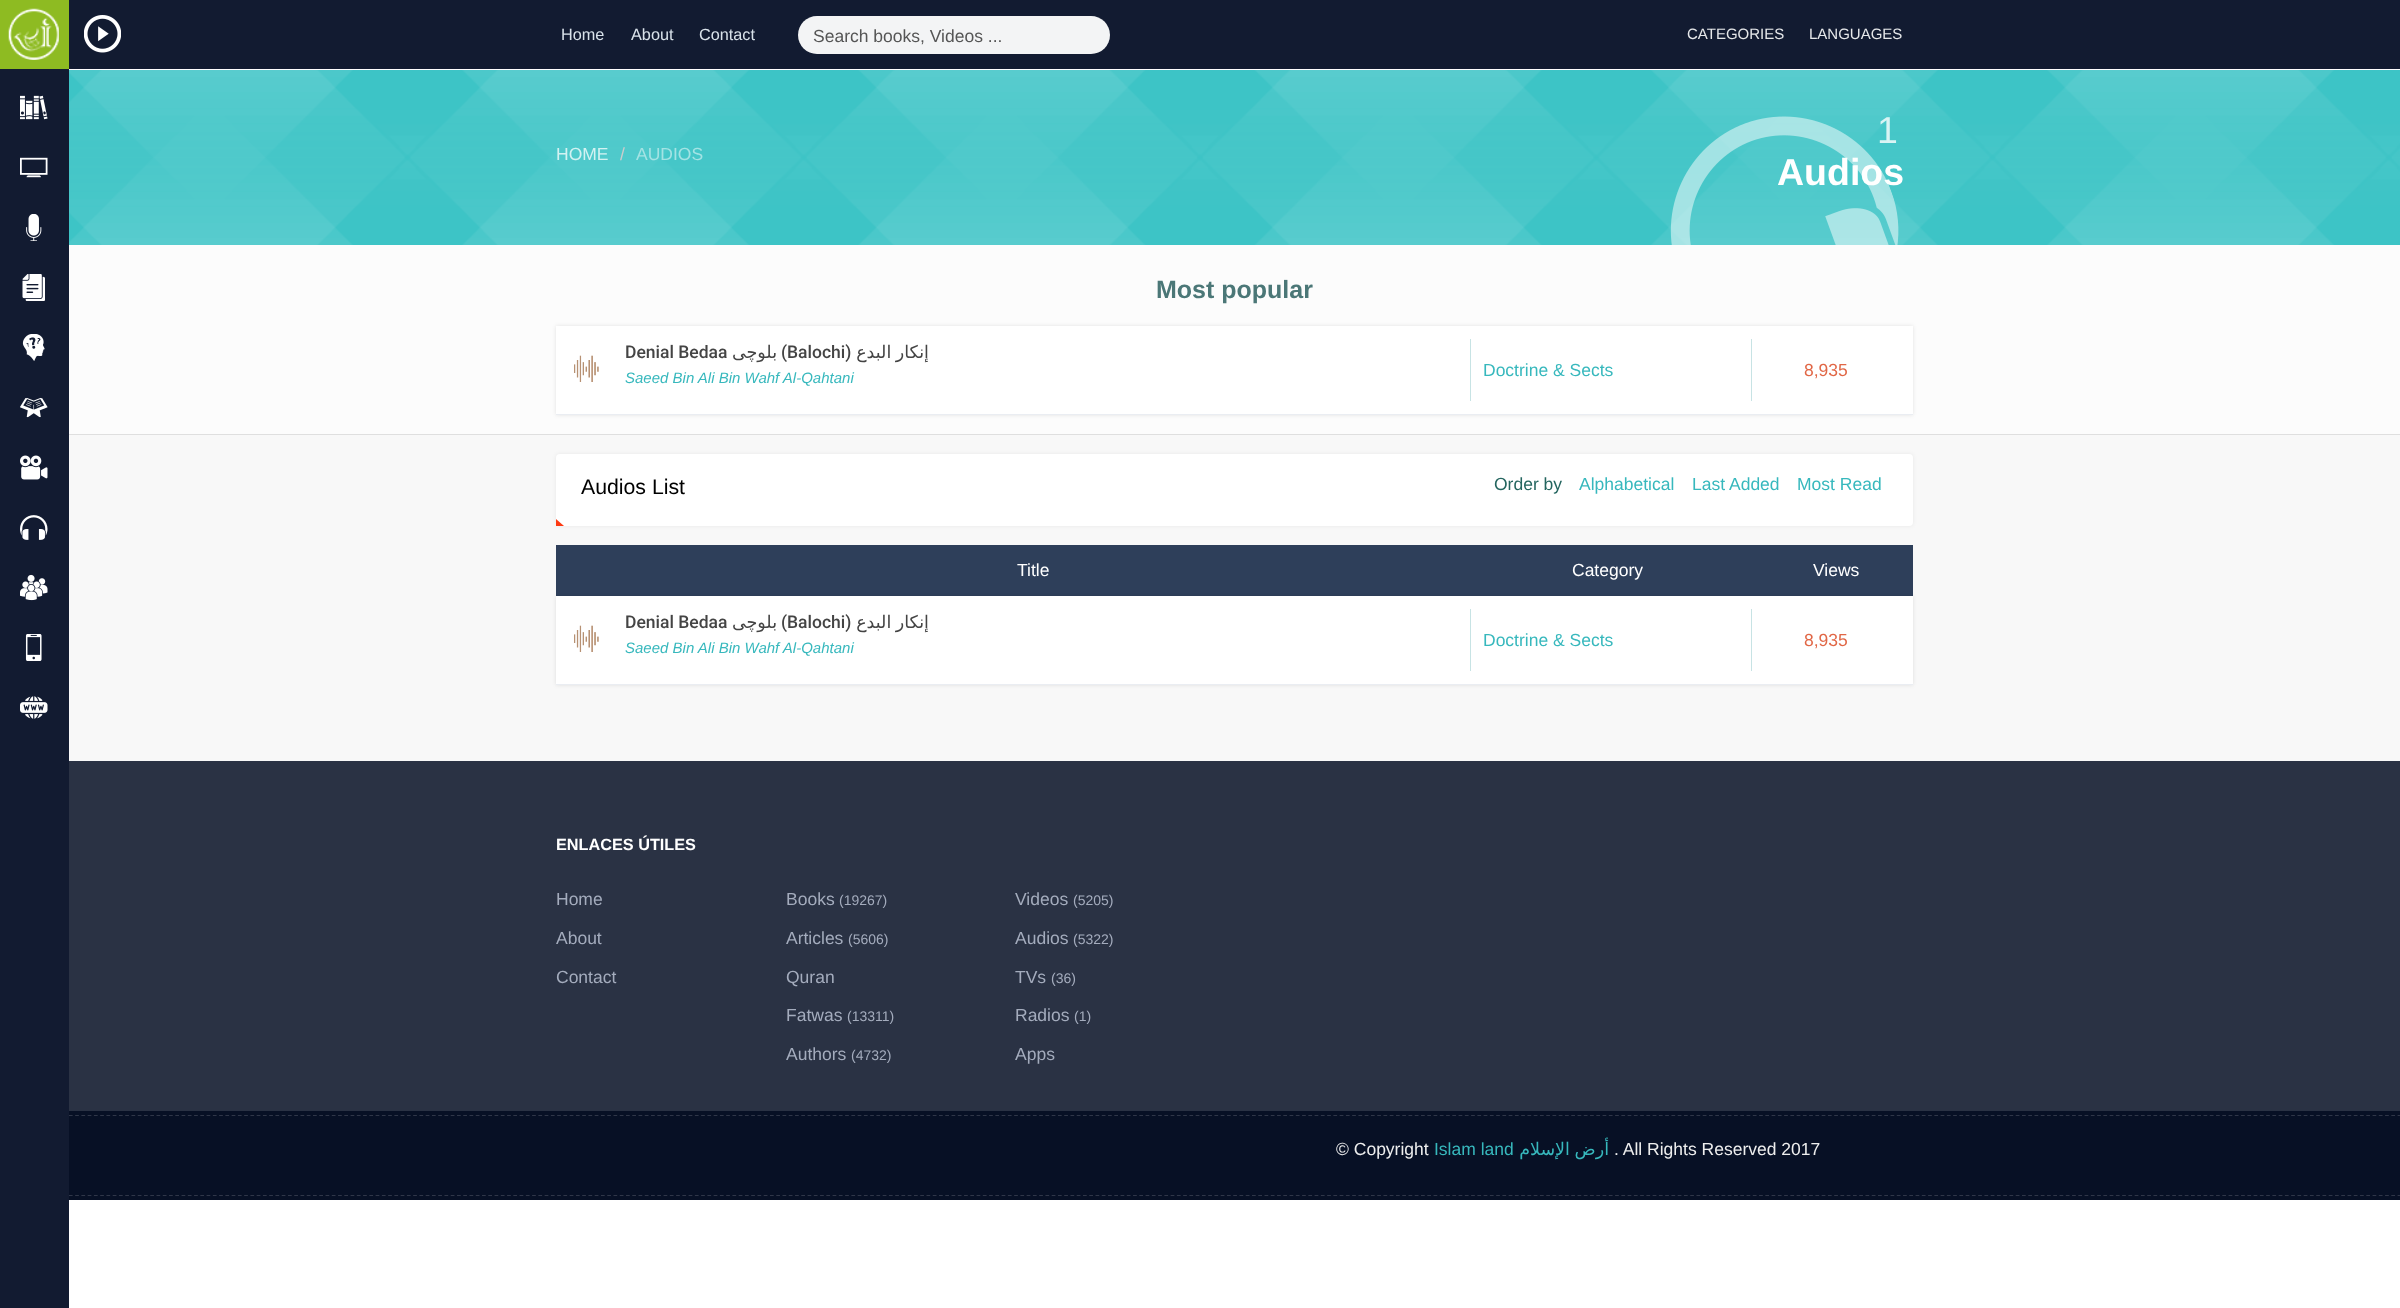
<svg xmlns="http://www.w3.org/2000/svg" width="2400" height="1308" viewBox="0 0 2400 1308">
  <defs>
    <filter id="blur1" x="-50%" y="-200%" width="200%" height="500%"><feGaussianBlur stdDeviation="2"/></filter>
  </defs>
  <rect width="100%" height="100%" fill="#ffffff"/>
  <rect x="69" y="0" width="2331" height="69" fill="#121b31"/>
  <rect x="0" y="0" width="69" height="69" fill="#8ebb22"/>
  <image x="8" y="8" width="51" height="52" href="img1.png"/>
  <image x="84" y="15" width="37" height="38" href="img2.png"/>
  <text x="561" y="40" font-family="Liberation Sans" font-size="16.25" fill="#d9e2ea">Home</text>
  <text x="631" y="40" font-family="Liberation Sans" font-size="16.25" fill="#d9e2ea">About</text>
  <text x="699" y="40" font-family="Liberation Sans" font-size="16.25" fill="#d9e2ea">Contact</text>
  <rect x="798" y="16" width="312" height="38" rx="19" fill="#f3f4f5"/>
  <text x="813" y="42" font-family="Liberation Sans" font-size="17.5" fill="#555555">Search books, Videos ...</text>
  <text x="1687" y="39" font-family="Liberation Sans" font-size="15" fill="#e6e8ea">CATEGORIES</text>
  <text x="1809" y="39" font-family="Liberation Sans" font-size="15" fill="#e6e8ea">LANGUAGES</text>
  <rect x="69" y="1111" width="2331" height="89" fill="#071025"/>
  <path d="M0 1115.5H2400" fill="none" stroke="#2f3648" stroke-width="1.2" stroke-dasharray="3.75 2.51"/>
  <path d="M0 1195.5H2400" fill="none" stroke="#2f3648" stroke-width="1.2" stroke-dasharray="3.75 2.51"/>
  <rect x="0" y="69" width="69" height="1239" fill="#121b31"/>
  <image x="20" y="95" width="28" height="25" href="img3.png"/>
  <image x="20" y="157" width="28" height="21" href="img4.png"/>
  <image x="26" y="214" width="16" height="27" href="img5.png"/>
  <image x="22" y="274" width="23" height="27" href="img6.png"/>
  <image x="22" y="334" width="23" height="27" href="img7.png"/>
  <image x="20" y="397" width="28" height="21" href="img8.png"/>
  <image x="20" y="455" width="28" height="25" href="img9.png"/>
  <image x="20" y="515" width="28" height="25" href="img10.png"/>
  <image x="20" y="574" width="28" height="27" href="img11.png"/>
  <image x="25" y="634" width="17" height="27" href="img12.png"/>
  <image x="20" y="696" width="28" height="23" href="img13.png"/>
  <rect x="69" y="70" width="2331" height="175" fill="#3dc4c6"/>
  <image x="69" y="70" width="2331" height="175" href="img14.png"/>
  <text x="1877" y="143" font-family="Liberation Sans" font-size="37.5" fill="#daf4f4">1</text>
  <text x="1777" y="185" font-family="Liberation Sans" font-size="37.5" font-weight="bold" fill="#ffffff">Audios</text>
  <image x="1670" y="116" width="229" height="129" href="img15.png"/>
  <text x="556" y="160" font-family="Liberation Sans" font-size="17.5" fill="#d3f2f2">HOME</text>
  <text x="620" y="160" font-family="Liberation Sans" font-size="17.5" fill="#cccccc">/</text>
  <text x="636" y="160" font-family="Liberation Sans" font-size="17.5" fill="#a4e3e4">AUDIOS</text>
  <rect x="69" y="245" width="2331" height="189" fill="#fcfcfc"/>
  <rect x="69" y="434" width="2331" height="1" fill="#dfdfdf"/>
  <text x="1156" y="298" font-family="Liberation Sans" font-size="25" font-weight="bold" fill="#4b7777">Most popular</text>
  <rect x="556" y="326" width="1357" height="89" fill="#000000" fill-opacity="0.1" filter="url(#blur1)"/>
  <rect x="556" y="326" width="1357" height="88" fill="#ffffff"/>
  <rect x="556" y="414" width="1357" height="1" fill="#eaedf2"/>
  <image x="574" y="355" width="25" height="27" href="img16.png"/>
  <text x="625" y="358" font-family="Roboto" font-size="17.5" font-weight="500" fill="#444444">Denial Bedaa</text>
  <text x="777" y="358" font-family="DejaVu Sans" font-size="17.5" direction="rtl" fill="#444444">بلوچی</text>
  <text x="781" y="358" font-family="Roboto" font-size="17.5" font-weight="500" fill="#444444">(Balochi)</text>
  <text x="929" y="358" word-spacing="-1" font-family="DejaVu Sans" font-size="17.5" direction="rtl" fill="#444444">إنكار البدع</text>
  <text x="625" y="383" font-family="Liberation Sans" font-size="15" font-style="italic" fill="#37b8bd">Saeed Bin Ali Bin Wahf Al-Qahtani</text>
  <rect x="1470" y="339" width="1" height="62" fill="#c7e3e4"/>
  <text x="1483" y="376" font-family="Liberation Sans" font-size="17.5" fill="#37b8bd">Doctrine &amp; Sects</text>
  <rect x="1751" y="339" width="1" height="62" fill="#c7e3e4"/>
  <text x="1804" y="376" font-family="Liberation Sans" font-size="17.5" fill="#e16746">8,935</text>
  <rect x="69" y="435" width="2331" height="326" fill="#f8f8f8"/>
  <rect x="556" y="454" width="1357" height="72" rx="4" fill="#000000" fill-opacity="0.07" filter="url(#blur1)"/>
  <rect x="556" y="454" width="1357" height="72" rx="4" fill="#ffffff"/>
  <text x="581" y="494" font-family="Liberation Sans" font-size="21.25" fill="#000000">Audios List</text>
  <text x="1494" y="490" font-family="Liberation Sans" font-size="17.5" fill="#24655f">Order by</text>
  <text x="1579" y="490" font-family="Liberation Sans" font-size="17.5" fill="#37b8bd">Alphabetical</text>
  <text x="1692" y="490" font-family="Liberation Sans" font-size="17.5" fill="#37b8bd">Last Added</text>
  <text x="1797" y="490" font-family="Liberation Sans" font-size="17.5" fill="#37b8bd">Most Read</text>
  <path d="M564 526H556V519Z" fill="#fd3a13"/>
  <rect x="556" y="545" width="1357" height="51" fill="#2e3f5a"/>
  <text x="1017" y="576" font-family="Liberation Sans" font-size="17.5" fill="#ffffff">Title</text>
  <text x="1572" y="576" font-family="Liberation Sans" font-size="17.5" fill="#ffffff">Category</text>
  <text x="1813" y="576" font-family="Liberation Sans" font-size="17.5" fill="#ffffff">Views</text>
  <rect x="556" y="596" width="1357" height="89" fill="#000000" fill-opacity="0.1" filter="url(#blur1)"/>
  <rect x="556" y="596" width="1357" height="88" fill="#ffffff"/>
  <rect x="556" y="684" width="1357" height="1" fill="#eaedf2"/>
  <image x="574" y="625" width="25" height="27" href="img16.png"/>
  <text x="625" y="628" font-family="Roboto" font-size="17.5" font-weight="500" fill="#444444">Denial Bedaa</text>
  <text x="777" y="628" font-family="DejaVu Sans" font-size="17.5" direction="rtl" fill="#444444">بلوچی</text>
  <text x="781" y="628" font-family="Roboto" font-size="17.5" font-weight="500" fill="#444444">(Balochi)</text>
  <text x="929" y="628" word-spacing="-1" font-family="DejaVu Sans" font-size="17.5" direction="rtl" fill="#444444">إنكار البدع</text>
  <text x="625" y="653" font-family="Liberation Sans" font-size="15" font-style="italic" fill="#37b8bd">Saeed Bin Ali Bin Wahf Al-Qahtani</text>
  <rect x="1470" y="609" width="1" height="62" fill="#c7e3e4"/>
  <text x="1483" y="646" font-family="Liberation Sans" font-size="17.5" fill="#37b8bd">Doctrine &amp; Sects</text>
  <rect x="1751" y="609" width="1" height="62" fill="#c7e3e4"/>
  <text x="1804" y="646" font-family="Liberation Sans" font-size="17.5" fill="#e16746">8,935</text>
  <rect x="69" y="761" width="2331" height="350" fill="#2a3244"/>
  <text x="556" y="850" font-family="Liberation Sans" font-size="16.25" font-weight="bold" fill="#ffffff">ENLACES ÚTILES</text>
  <text x="556" y="905" font-family="Liberation Sans" font-size="17.5" fill="#a4acbd">Home</text>
  <text x="556" y="944" font-family="Liberation Sans" font-size="17.5" fill="#a4acbd">About</text>
  <text x="556" y="983" font-family="Liberation Sans" font-size="17.5" fill="#a4acbd">Contact</text>
  <text x="786" y="905" font-family="Liberation Sans" font-size="17.5" fill="#a4acbd">Books</text>
  <text x="839" y="905" font-family="Liberation Sans" font-size="14" fill="#a4acbd">(19267)</text>
  <text x="786" y="944" font-family="Liberation Sans" font-size="17.5" fill="#a4acbd">Articles</text>
  <text x="848" y="944" font-family="Liberation Sans" font-size="14" fill="#a4acbd">(5606)</text>
  <text x="786" y="983" font-family="Liberation Sans" font-size="17.5" fill="#a4acbd">Quran</text>
  <text x="786" y="1021" font-family="Liberation Sans" font-size="17.5" fill="#a4acbd">Fatwas</text>
  <text x="847" y="1021" font-family="Liberation Sans" font-size="14" fill="#a4acbd">(13311)</text>
  <text x="786" y="1060" font-family="Liberation Sans" font-size="17.5" fill="#a4acbd">Authors</text>
  <text x="851" y="1060" font-family="Liberation Sans" font-size="14" fill="#a4acbd">(4732)</text>
  <text x="1015" y="905" font-family="Liberation Sans" font-size="17.5" fill="#a4acbd">Videos</text>
  <text x="1073" y="905" font-family="Liberation Sans" font-size="14" fill="#a4acbd">(5205)</text>
  <text x="1015" y="944" font-family="Liberation Sans" font-size="17.5" fill="#a4acbd">Audios</text>
  <text x="1073" y="944" font-family="Liberation Sans" font-size="14" fill="#a4acbd">(5322)</text>
  <text x="1015" y="983" font-family="Liberation Sans" font-size="17.5" fill="#a4acbd">TVs</text>
  <text x="1051" y="983" font-family="Liberation Sans" font-size="14" fill="#a4acbd">(36)</text>
  <text x="1015" y="1021" font-family="Liberation Sans" font-size="17.5" fill="#a4acbd">Radios</text>
  <text x="1074" y="1021" font-family="Liberation Sans" font-size="14" fill="#a4acbd">(1)</text>
  <text x="1015" y="1060" font-family="Liberation Sans" font-size="17.5" fill="#a4acbd">Apps</text>
  <text x="1336" y="1155" font-family="Liberation Sans" font-size="17.5" fill="#eeeeee">© Copyright</text>
  <text x="1434" y="1155" font-family="Liberation Sans" font-size="17.5" fill="#37b8bd">Islam land</text>
  <text x="1609" y="1155" word-spacing="-1" font-family="DejaVu Sans" font-size="17.5" direction="rtl" fill="#37b8bd">أرض الإسلام</text>
  <text x="1614" y="1155" font-family="Liberation Sans" font-size="17.5" fill="#eeeeee">. All Rights Reserved 2017</text>
</svg>
